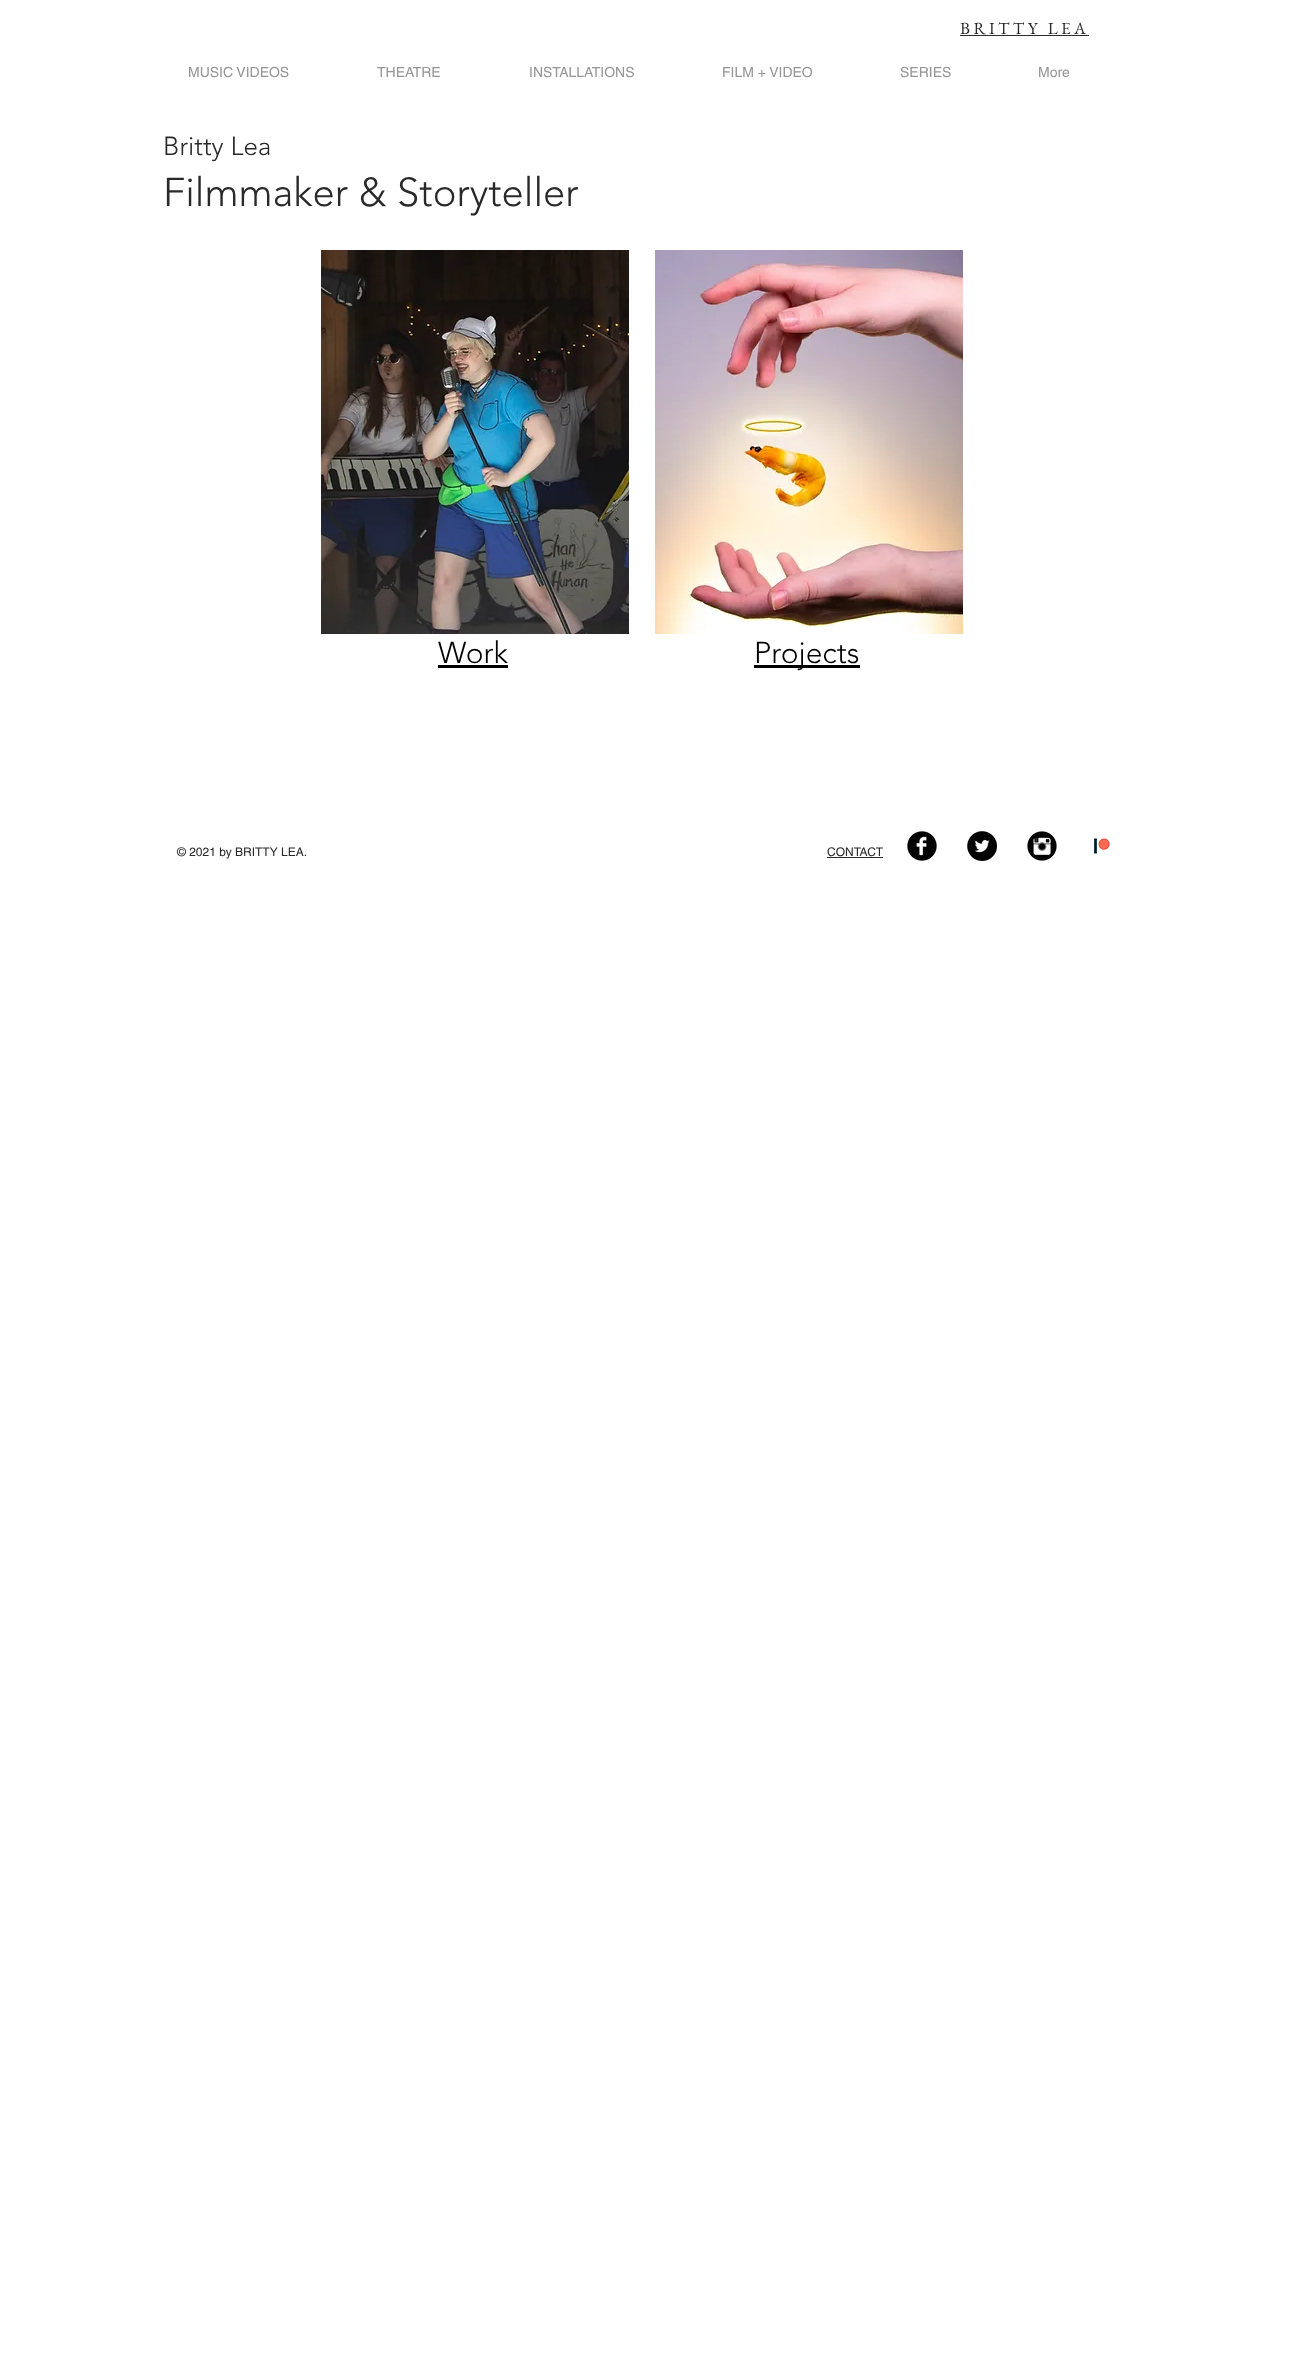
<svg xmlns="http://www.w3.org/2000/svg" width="1302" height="2368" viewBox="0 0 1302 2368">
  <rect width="100%" height="100%" fill="#ffffff"/>
  <text x="960" y="34" font-family="EB Garamond" font-size="17" letter-spacing="3.4" fill="#292929">BRITTY LEA</text>
  <rect x="960" y="35" width="129" height="1" fill="#2b2b2b"/>
  <text x="188" y="77" font-family="helvetica" font-size="14" fill="#979595">MUSIC VIDEOS</text>
  <text x="377" y="77" font-family="helvetica" font-size="14" fill="#979595">THEATRE</text>
  <text x="529" y="77" font-family="helvetica" font-size="14" fill="#979595">INSTALLATIONS</text>
  <text x="722" y="77" font-family="helvetica" font-size="14" fill="#979595">FILM + VIDEO</text>
  <text x="900" y="77" font-family="helvetica" font-size="14" fill="#979595">SERIES</text>
  <text x="1038" y="77" font-family="helvetica" font-size="14" fill="#979595">More</text>
  <text x="163" y="155" font-family="'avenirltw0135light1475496'" font-size="26" font-weight="300" fill="#292929">Britty Lea</text>
  <text x="163" y="206" font-family="'avenirltw0135light1475496'" font-size="40" font-weight="300" fill="#292929">Filmmaker &amp; Storyteller</text>
  <image x="321" y="250" width="308" height="384" href="img1.png"/>
  <text x="438" y="663" font-family="'avenirltw0135light1475496'" font-size="30" font-weight="300" fill="#000000">Work</text>
  <rect x="438" y="665" width="70" height="3" fill="#000000"/>
  <image x="655" y="250" width="308" height="384" href="img2.png"/>
  <rect x="754" y="665" width="106" height="3" fill="#000000"/>
  <text x="754" y="663" font-family="'avenirltw0135light1475496'" font-size="30" font-weight="300" fill="#000000">Projects</text>
  <text x="177" y="856" font-family="helvetica" font-size="12" fill="#292929">© 2021 by BRITTY LEA.</text>
  <text x="827" y="856" font-family="helvetica" font-size="12" fill="#292929">CONTACT</text>
  <rect x="827" y="857" width="56" height="1" fill="#2b2b2b"/>
  <image x="907" y="831" width="30" height="30" href="img3.png"/>
  <image x="967" y="831" width="30" height="30" href="img4.png"/>
  <image x="1027" y="831" width="30" height="30" href="img5.png"/>
  <image x="1094" y="836" width="16" height="20" href="img6.png"/>
</svg>
